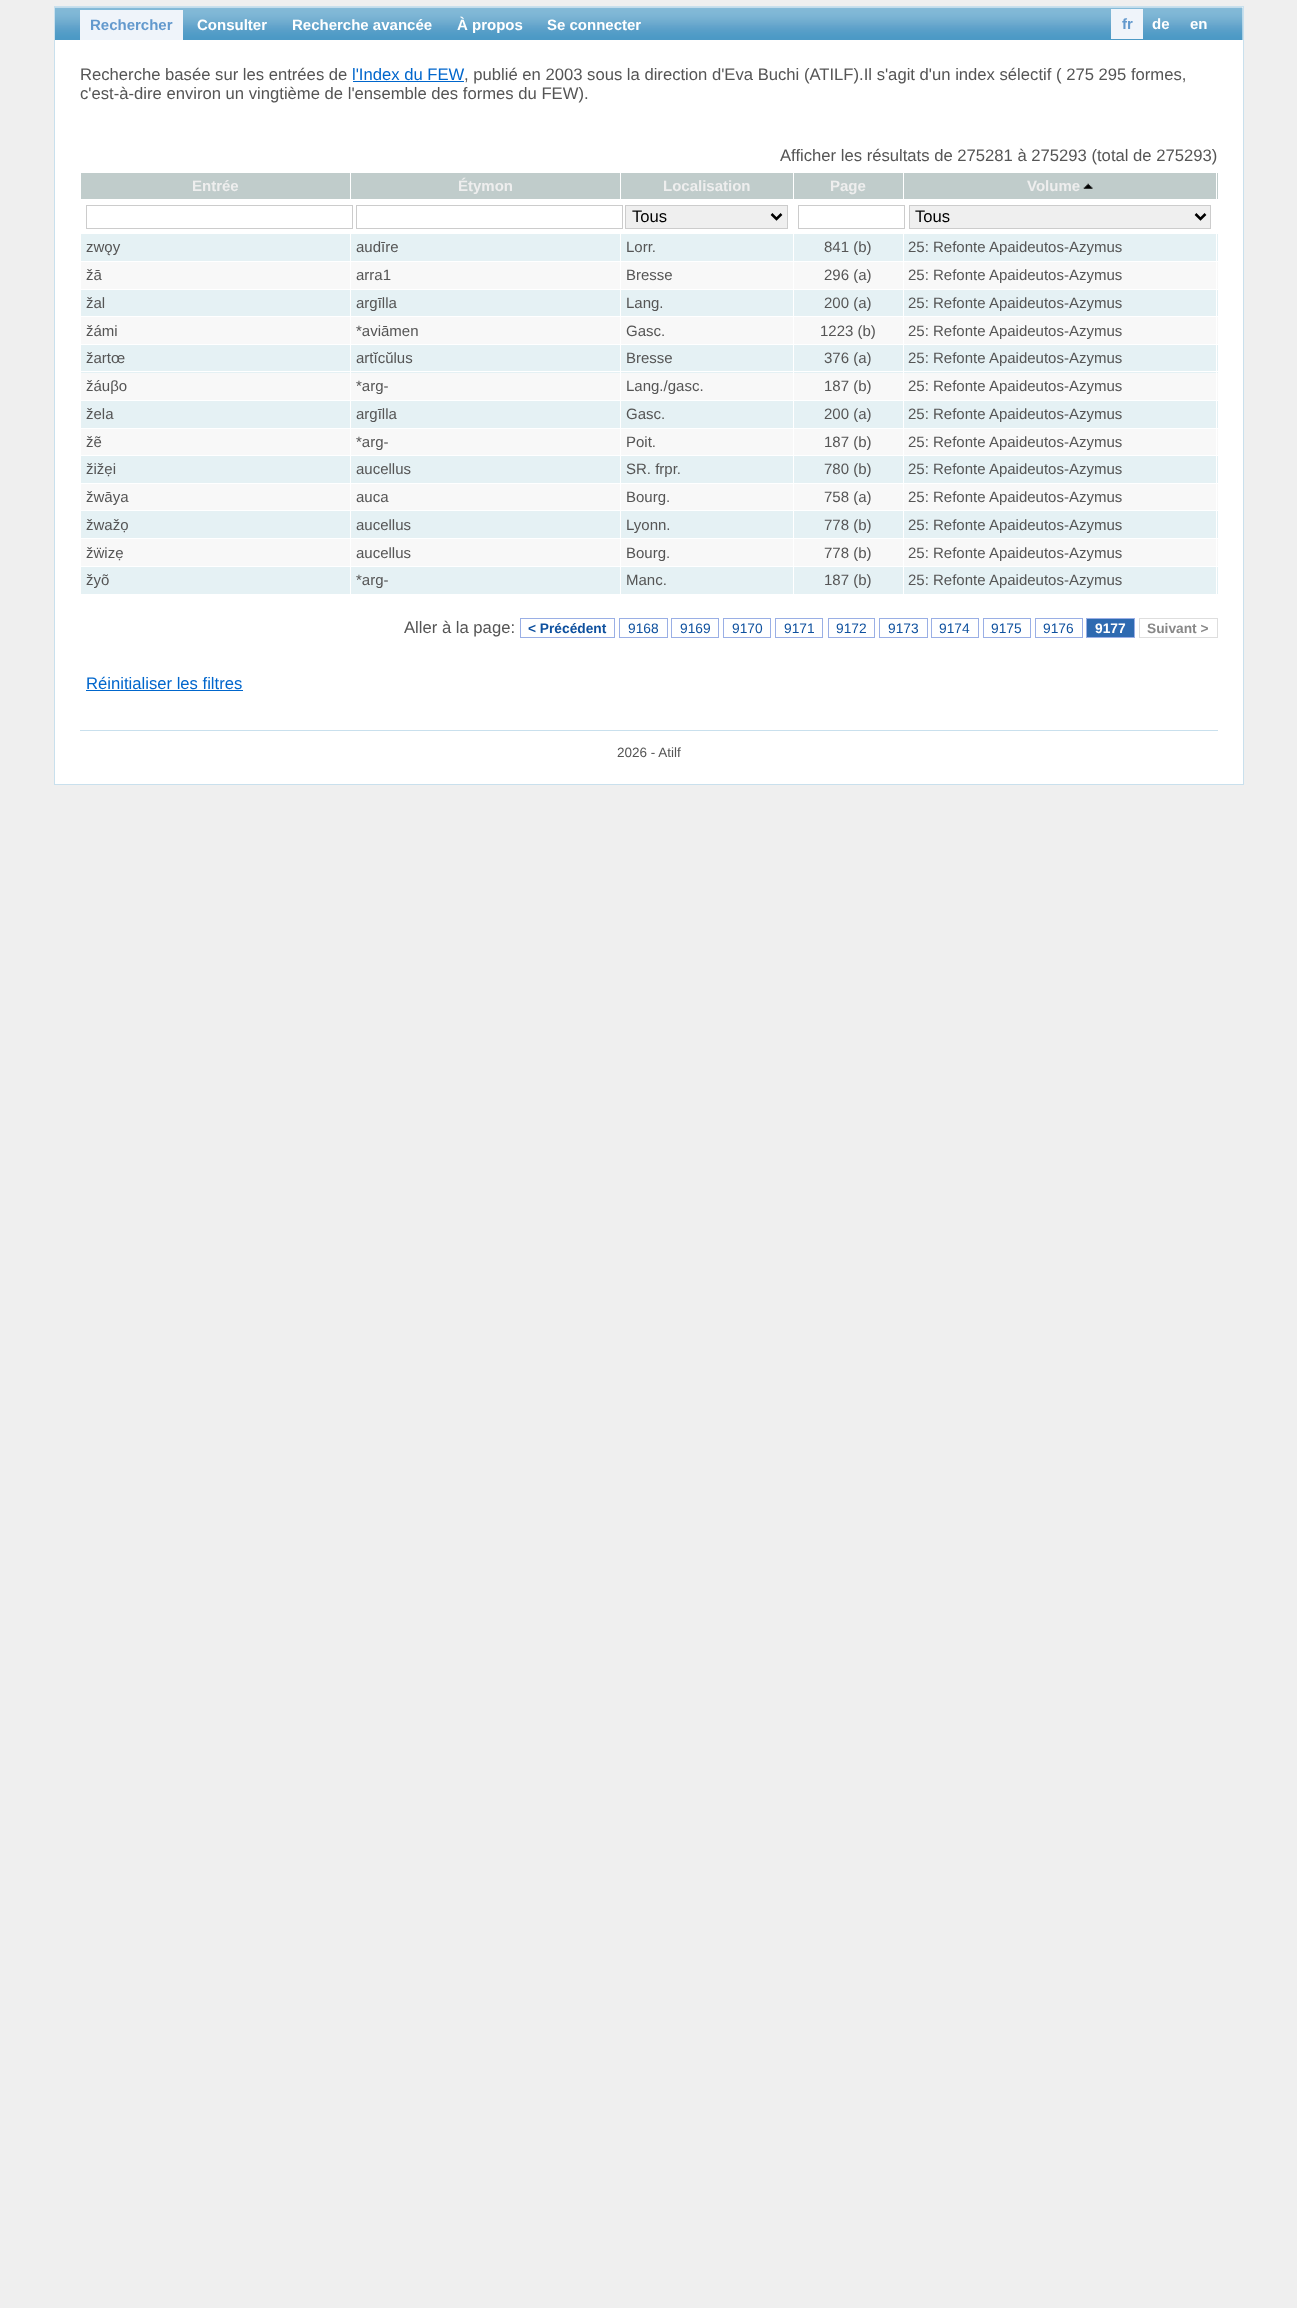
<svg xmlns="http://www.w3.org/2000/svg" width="1297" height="2308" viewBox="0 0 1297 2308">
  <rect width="100%" height="100%" fill="#efefef"/>
  <rect x="54.5" y="6.5" width="1189" height="778" fill="#ffffff" stroke="#c9e0ed"/>
  <image x="55" y="7" width="1188" height="33" href="img1.png"/>
  <rect x="80" y="10" width="103" height="30" fill="#eff4fa"/>
  <text x="90" y="30" font-family="Liberation Sans" font-size="15" font-weight="bold" fill="#6399cd">Rechercher</text>
  <text x="197" y="30" font-family="Liberation Sans" font-size="15" font-weight="bold" fill="#ffffff">Consulter</text>
  <text x="292" y="30" font-family="Liberation Sans" font-size="15" font-weight="bold" fill="#ffffff">Recherche avancée</text>
  <text x="457" y="30" font-family="Liberation Sans" font-size="15" font-weight="bold" fill="#ffffff">À propos</text>
  <text x="547" y="30" font-family="Liberation Sans" font-size="15" font-weight="bold" fill="#ffffff">Se connecter</text>
  <rect x="1111" y="9" width="32" height="30" fill="#eff4fa"/>
  <text x="1122" y="29" font-family="Liberation Sans" font-size="15" font-weight="bold" fill="#6399cd">fr</text>
  <text x="1152" y="29" font-family="Liberation Sans" font-size="15" font-weight="bold" fill="#ffffff">de</text>
  <text x="1190" y="29" font-family="Liberation Sans" font-size="15" font-weight="bold" fill="#ffffff">en</text>
  <text x="80" y="80" font-family="Liberation Sans" font-size="16.65" fill="#555555">Recherche basée sur les entrées de</text>
  <text x="352" y="80" font-family="Liberation Sans" font-size="16.65" fill="#0066cc">l'Index du FEW</text>
  <rect x="353" y="81" width="111" height="1" fill="#0066cc"/>
  <text x="464" y="80" font-family="Liberation Sans" font-size="16.65" fill="#555555">, publié en 2003 sous la direction d'Eva Buchi (ATILF).Il s'agit d'un index sélectif ( 275 295 formes,</text>
  <text x="80" y="99" font-family="Liberation Sans" font-size="16.65" fill="#555555">c'est-à-dire environ un vingtième de l'ensemble des formes du FEW).</text>
  <text x="780" y="161" font-family="Liberation Sans" font-size="16.65" fill="#555555">Afficher les résultats de 275281 à 275293 (total de 275293)</text>
  <rect x="81" y="173" width="269" height="26" fill="#c0cccb"/>
  <text x="192" y="191" font-family="Liberation Sans" font-size="15" font-weight="bold" fill="#eeeeee">Entrée</text>
  <rect x="351" y="173" width="269" height="26" fill="#c0cccb"/>
  <text x="458" y="191" font-family="Liberation Sans" font-size="15" font-weight="bold" fill="#eeeeee">Étymon</text>
  <rect x="621" y="173" width="172" height="26" fill="#c0cccb"/>
  <text x="663" y="191" font-family="Liberation Sans" font-size="15" font-weight="bold" fill="#eeeeee">Localisation</text>
  <rect x="794" y="173" width="109" height="26" fill="#c0cccb"/>
  <text x="830" y="191" font-family="Liberation Sans" font-size="15" font-weight="bold" fill="#eeeeee">Page</text>
  <rect x="904" y="173" width="314" height="26" fill="#c0cccb"/>
  <rect x="1216" y="171" width="1" height="29" fill="#ffffff"/>
  <text x="1027" y="191" font-family="Liberation Sans" font-size="15" font-weight="bold" fill="#eeeeee">Volume</text>
  <image x="1083" y="183" width="10" height="6" href="img2.png"/>
  <rect x="86.5" y="205.5" width="266" height="23" fill="none" stroke="#cccccc"/>
  <rect x="356.5" y="205.5" width="266" height="23" fill="none" stroke="#cccccc"/>
  <rect x="625.5" y="205.5" width="162" height="23" fill="#efefef" stroke="#cccccc"/>
  <path d="M771.5 214L776.5 219L781.5 214" fill="none" stroke="#000000" stroke-width="2.5"/>
  <text x="632" y="222" font-family="Liberation Sans" font-size="16.65" fill="#000000">Tous</text>
  <rect x="798.5" y="205.5" width="106" height="23" fill="none" stroke="#cccccc"/>
  <rect x="909.5" y="205.5" width="301" height="23" fill="#efefef" stroke="#cccccc"/>
  <path d="M1195.5 214L1200.5 219L1205.5 214" fill="none" stroke="#000000" stroke-width="2.5"/>
  <text x="915" y="222" font-family="Liberation Sans" font-size="16.65" fill="#000000">Tous</text>
  <rect x="81" y="234" width="1137" height="27" fill="#e5f1f4"/>
  <text x="86" y="252" font-family="Liberation Sans" font-size="15" fill="#555555">zwǫy</text>
  <text x="356" y="252" font-family="Liberation Sans" font-size="15" fill="#555555">audīre</text>
  <text x="626" y="252" font-family="Liberation Sans" font-size="15" fill="#555555">Lorr.</text>
  <text x="824" y="252" font-family="Liberation Sans" font-size="15" fill="#555555">841 (b)</text>
  <text x="908" y="252" font-family="Liberation Sans" font-size="15" fill="#555555">25: Refonte Apaideutos-Azymus</text>
  <rect x="81" y="262" width="1137" height="27" fill="#f8f8f8"/>
  <text x="86" y="280" font-family="Liberation Sans" font-size="15" fill="#555555">žā</text>
  <text x="356" y="280" font-family="Liberation Sans" font-size="15" fill="#555555">arra1</text>
  <text x="626" y="280" font-family="Liberation Sans" font-size="15" fill="#555555">Bresse</text>
  <text x="824" y="280" font-family="Liberation Sans" font-size="15" fill="#555555">296 (a)</text>
  <text x="908" y="280" font-family="Liberation Sans" font-size="15" fill="#555555">25: Refonte Apaideutos-Azymus</text>
  <rect x="81" y="290" width="1137" height="26" fill="#e5f1f4"/>
  <text x="86" y="308" font-family="Liberation Sans" font-size="15" fill="#555555">žal</text>
  <text x="356" y="308" font-family="Liberation Sans" font-size="15" fill="#555555">argīlla</text>
  <text x="626" y="308" font-family="Liberation Sans" font-size="15" fill="#555555">Lang.</text>
  <text x="824" y="308" font-family="Liberation Sans" font-size="15" fill="#555555">200 (a)</text>
  <text x="908" y="308" font-family="Liberation Sans" font-size="15" fill="#555555">25: Refonte Apaideutos-Azymus</text>
  <rect x="81" y="317" width="1137" height="27" fill="#f8f8f8"/>
  <text x="86" y="336" font-family="Liberation Sans" font-size="15" fill="#555555">žámi</text>
  <text x="356" y="336" font-family="Liberation Sans" font-size="15" fill="#555555">*aviāmen</text>
  <text x="626" y="336" font-family="Liberation Sans" font-size="15" fill="#555555">Gasc.</text>
  <text x="820" y="336" font-family="Liberation Sans" font-size="15" fill="#555555">1223 (b)</text>
  <text x="908" y="336" font-family="Liberation Sans" font-size="15" fill="#555555">25: Refonte Apaideutos-Azymus</text>
  <rect x="81" y="345" width="1137" height="28" fill="#e5f1f4"/>
  <text x="86" y="363" font-family="Liberation Sans" font-size="15" fill="#555555">žartœ</text>
  <rect x="903" y="371" width="315" height="1" fill="#ffffff"/>
  <rect x="81" y="373" width="1137" height="27" fill="#f8f8f8"/>
  <rect x="81" y="401" width="1137" height="27" fill="#e5f1f4"/>
  <rect x="81" y="429" width="1137" height="26" fill="#f8f8f8"/>
  <rect x="81" y="456" width="1137" height="27" fill="#e5f1f4"/>
  <rect x="81" y="484" width="1137" height="26" fill="#f8f8f8"/>
  <rect x="81" y="511" width="1137" height="27" fill="#e5f1f4"/>
  <rect x="81" y="539" width="1137" height="27" fill="#f8f8f8"/>
  <rect x="81" y="567" width="1137" height="27" fill="#e5f1f4"/>
  <rect x="903" y="400" width="1" height="195" fill="#ffffff"/>
  <rect x="903" y="371" width="1" height="30" fill="#ffffff"/>
  <rect x="793" y="371" width="111" height="1" fill="#ffffff"/>
  <rect x="793" y="400" width="1" height="195" fill="#ffffff"/>
  <rect x="793" y="371" width="1" height="30" fill="#ffffff"/>
  <rect x="620" y="371" width="174" height="1" fill="#ffffff"/>
  <rect x="620" y="400" width="1" height="195" fill="#ffffff"/>
  <rect x="620" y="371" width="1" height="30" fill="#ffffff"/>
  <rect x="350" y="371" width="271" height="1" fill="#ffffff"/>
  <rect x="350" y="400" width="1" height="195" fill="#ffffff"/>
  <rect x="350" y="371" width="1" height="30" fill="#ffffff"/>
  <rect x="80" y="371" width="271" height="1" fill="#ffffff"/>
  <rect x="350" y="233" width="1" height="140" fill="#ffffff"/>
  <text x="356" y="363" font-family="Liberation Sans" font-size="15" fill="#555555">artĭcŭlus</text>
  <rect x="620" y="233" width="1" height="140" fill="#ffffff"/>
  <text x="626" y="363" font-family="Liberation Sans" font-size="15" fill="#555555">Bresse</text>
  <rect x="793" y="233" width="1" height="140" fill="#ffffff"/>
  <text x="824" y="363" font-family="Liberation Sans" font-size="15" fill="#555555">376 (a)</text>
  <rect x="903" y="233" width="1" height="140" fill="#ffffff"/>
  <text x="908" y="363" font-family="Liberation Sans" font-size="15" fill="#555555">25: Refonte Apaideutos-Azymus</text>
  <text x="86" y="391" font-family="Liberation Sans" font-size="15" fill="#555555">žáuβo</text>
  <text x="356" y="391" font-family="Liberation Sans" font-size="15" fill="#555555">*arg-</text>
  <text x="626" y="391" font-family="Liberation Sans" font-size="15" fill="#555555">Lang./gasc.</text>
  <text x="824" y="391" font-family="Liberation Sans" font-size="15" fill="#555555">187 (b)</text>
  <rect x="1216" y="400" width="1" height="195" fill="#ffffff"/>
  <rect x="1216" y="233" width="1" height="168" fill="#ffffff"/>
  <text x="908" y="391" font-family="Liberation Sans" font-size="15" fill="#555555">25: Refonte Apaideutos-Azymus</text>
  <text x="86" y="419" font-family="Liberation Sans" font-size="15" fill="#555555">žela</text>
  <text x="356" y="419" font-family="Liberation Sans" font-size="15" fill="#555555">argīlla</text>
  <text x="626" y="419" font-family="Liberation Sans" font-size="15" fill="#555555">Gasc.</text>
  <text x="824" y="419" font-family="Liberation Sans" font-size="15" fill="#555555">200 (a)</text>
  <text x="908" y="419" font-family="Liberation Sans" font-size="15" fill="#555555">25: Refonte Apaideutos-Azymus</text>
  <text x="86" y="447" font-family="Liberation Sans" font-size="15" fill="#555555">žẽ</text>
  <text x="356" y="447" font-family="Liberation Sans" font-size="15" fill="#555555">*arg-</text>
  <text x="626" y="447" font-family="Liberation Sans" font-size="15" fill="#555555">Poit.</text>
  <text x="824" y="447" font-family="Liberation Sans" font-size="15" fill="#555555">187 (b)</text>
  <text x="908" y="447" font-family="Liberation Sans" font-size="15" fill="#555555">25: Refonte Apaideutos-Azymus</text>
  <text x="86" y="474" font-family="Liberation Sans" font-size="15" fill="#555555">žižẹi</text>
  <text x="356" y="474" font-family="Liberation Sans" font-size="15" fill="#555555">aucellus</text>
  <text x="626" y="474" font-family="Liberation Sans" font-size="15" fill="#555555">SR. frpr.</text>
  <text x="824" y="474" font-family="Liberation Sans" font-size="15" fill="#555555">780 (b)</text>
  <text x="908" y="474" font-family="Liberation Sans" font-size="15" fill="#555555">25: Refonte Apaideutos-Azymus</text>
  <text x="86" y="502" font-family="Liberation Sans" font-size="15" fill="#555555">žwāya</text>
  <text x="356" y="502" font-family="Liberation Sans" font-size="15" fill="#555555">auca</text>
  <text x="626" y="502" font-family="Liberation Sans" font-size="15" fill="#555555">Bourg.</text>
  <text x="824" y="502" font-family="Liberation Sans" font-size="15" fill="#555555">758 (a)</text>
  <text x="908" y="502" font-family="Liberation Sans" font-size="15" fill="#555555">25: Refonte Apaideutos-Azymus</text>
  <text x="86" y="530" font-family="Liberation Sans" font-size="15" fill="#555555">žwažọ</text>
  <text x="356" y="530" font-family="Liberation Sans" font-size="15" fill="#555555">aucellus</text>
  <text x="626" y="530" font-family="Liberation Sans" font-size="15" fill="#555555">Lyonn.</text>
  <text x="824" y="530" font-family="Liberation Sans" font-size="15" fill="#555555">778 (b)</text>
  <text x="908" y="530" font-family="Liberation Sans" font-size="15" fill="#555555">25: Refonte Apaideutos-Azymus</text>
  <text x="86" y="558" font-family="Liberation Sans" font-size="15" fill="#555555">žẅizẹ</text>
  <text x="356" y="558" font-family="Liberation Sans" font-size="15" fill="#555555">aucellus</text>
  <text x="626" y="558" font-family="Liberation Sans" font-size="15" fill="#555555">Bourg.</text>
  <text x="824" y="558" font-family="Liberation Sans" font-size="15" fill="#555555">778 (b)</text>
  <text x="908" y="558" font-family="Liberation Sans" font-size="15" fill="#555555">25: Refonte Apaideutos-Azymus</text>
  <text x="86" y="585" font-family="Liberation Sans" font-size="15" fill="#555555">žyõ</text>
  <text x="356" y="585" font-family="Liberation Sans" font-size="15" fill="#555555">*arg-</text>
  <text x="626" y="585" font-family="Liberation Sans" font-size="15" fill="#555555">Manc.</text>
  <text x="824" y="585" font-family="Liberation Sans" font-size="15" fill="#555555">187 (b)</text>
  <text x="908" y="585" font-family="Liberation Sans" font-size="15" fill="#555555">25: Refonte Apaideutos-Azymus</text>
  <text x="404" y="633" font-family="Liberation Sans" font-size="16.65" fill="#555555">Aller à la page:</text>
  <rect x="520.5" y="618.5" width="94" height="19" fill="none" stroke="#9aafe5"/>
  <text x="528" y="633" font-family="Liberation Sans" font-size="13.75" font-weight="bold" fill="#0e509e">&lt; Précédent</text>
  <rect x="619.5" y="618.5" width="48" height="19" fill="none" stroke="#9aafe5"/>
  <text x="628" y="633" font-family="Liberation Sans" font-size="13.75" fill="#0e509e">9168</text>
  <rect x="671.5" y="618.5" width="47" height="19" fill="none" stroke="#9aafe5"/>
  <text x="680" y="633" font-family="Liberation Sans" font-size="13.75" fill="#0e509e">9169</text>
  <rect x="723.5" y="618.5" width="47" height="19" fill="none" stroke="#9aafe5"/>
  <text x="732" y="633" font-family="Liberation Sans" font-size="13.75" fill="#0e509e">9170</text>
  <rect x="775.5" y="618.5" width="47" height="19" fill="none" stroke="#9aafe5"/>
  <text x="784" y="633" font-family="Liberation Sans" font-size="13.75" fill="#0e509e">9171</text>
  <rect x="828.5" y="618.5" width="46" height="19" fill="none" stroke="#9aafe5"/>
  <text x="836" y="633" font-family="Liberation Sans" font-size="13.75" fill="#0e509e">9172</text>
  <rect x="879.5" y="618.5" width="48" height="19" fill="none" stroke="#9aafe5"/>
  <text x="888" y="633" font-family="Liberation Sans" font-size="13.75" fill="#0e509e">9173</text>
  <rect x="931.5" y="618.5" width="47" height="19" fill="none" stroke="#9aafe5"/>
  <text x="939" y="633" font-family="Liberation Sans" font-size="13.75" fill="#0e509e">9174</text>
  <rect x="983.5" y="618.5" width="47" height="19" fill="none" stroke="#9aafe5"/>
  <text x="991" y="633" font-family="Liberation Sans" font-size="13.75" fill="#0e509e">9175</text>
  <rect x="1035.5" y="618.5" width="47" height="19" fill="none" stroke="#9aafe5"/>
  <text x="1043" y="633" font-family="Liberation Sans" font-size="13.75" fill="#0e509e">9176</text>
  <rect x="1086.5" y="618.5" width="48" height="19" fill="#2e6ab1" stroke="#9aafe5"/>
  <text x="1095" y="633" font-family="Liberation Sans" font-size="13.75" font-weight="bold" fill="#ffffff">9177</text>
  <rect x="1139.5" y="618.5" width="78" height="19" fill="none" stroke="#dedede"/>
  <text x="1147" y="633" font-family="Liberation Sans" font-size="13.75" font-weight="bold" fill="#888888">Suivant &gt;</text>
  <text x="86" y="689" font-family="Liberation Sans" font-size="16.65" fill="#0066cc">Réinitialiser les filtres</text>
  <rect x="86" y="690" width="157" height="1" fill="#0066cc"/>
  <rect x="80" y="730" width="1138" height="1" fill="#c9e0ed"/>
  <text x="617" y="757" font-family="Liberation Sans" font-size="13.5" fill="#555555">2026 - Atilf</text>
</svg>
